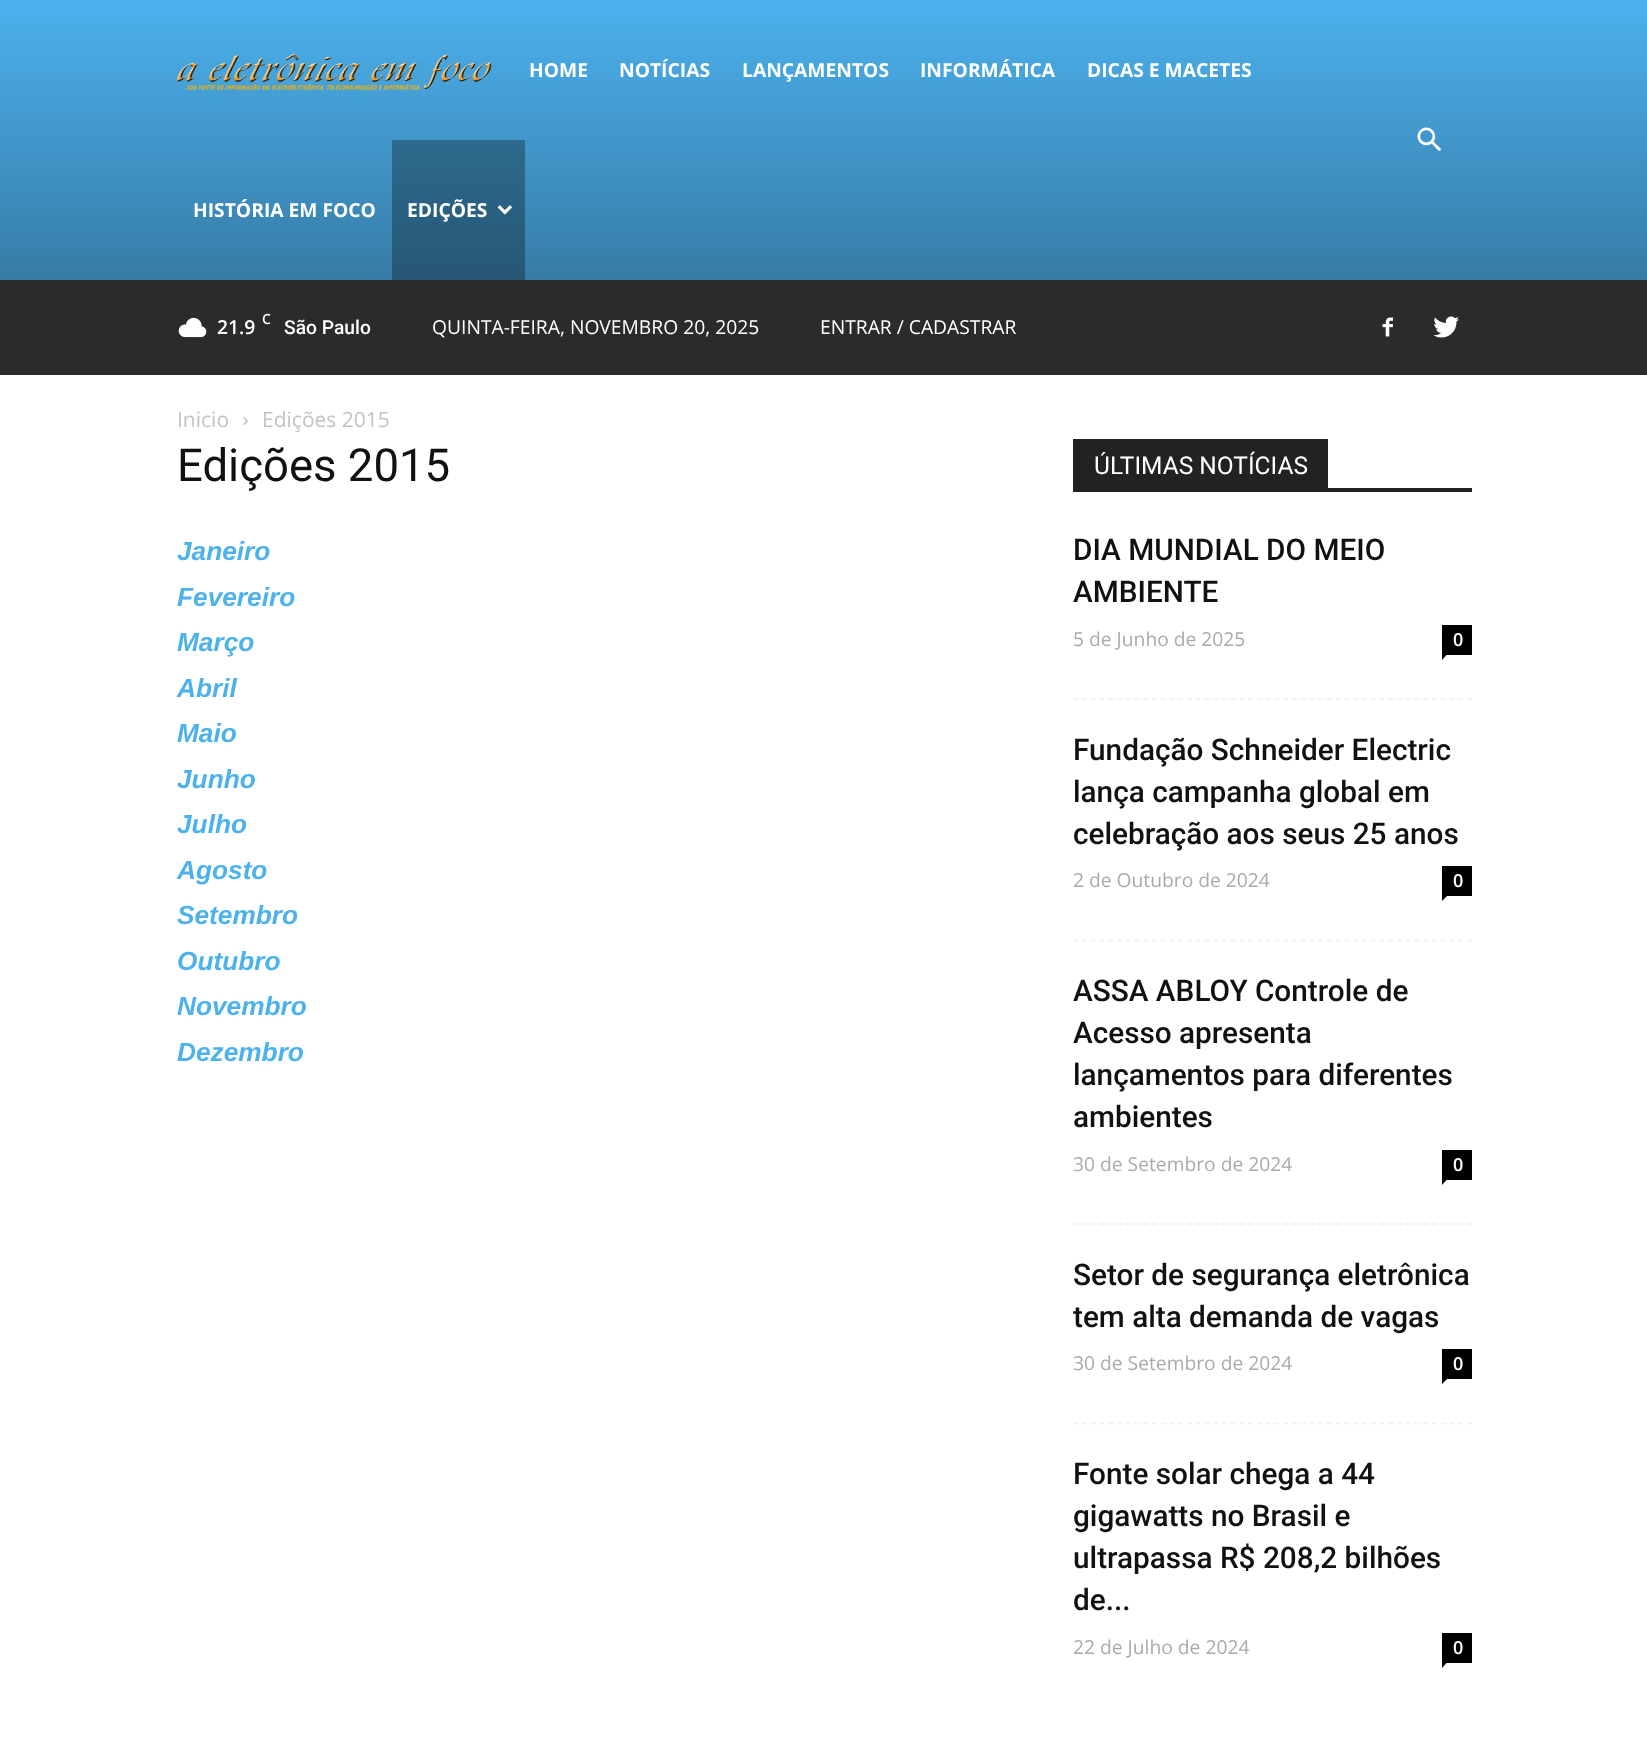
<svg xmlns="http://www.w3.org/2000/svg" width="1647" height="1751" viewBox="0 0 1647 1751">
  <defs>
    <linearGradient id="g1" gradientUnits="userSpaceOnUse" x1="824" y1="0" x2="824" y2="280"><stop offset="0" stop-color="#4cb1ee"/><stop offset="1" stop-color="#367ca6"/></linearGradient>
    <linearGradient id="g2" gradientUnits="userSpaceOnUse" x1="824" y1="0" x2="824" y2="280"><stop offset="0" stop-color="#357ca7"/><stop offset="1" stop-color="#265774"/></linearGradient>
  </defs>
  <rect width="100%" height="100%" fill="#ffffff"/>
  <rect x="0" y="0" width="1647" height="280" fill="url(#g1)"/>
  <rect x="392" y="140" width="133" height="140" fill="url(#g2)"/>
  <image x="176" y="54" width="316" height="37" href="img1.png"/>
  <text x="529" y="77" font-family="Open Sans" font-size="19.25" font-weight="bold" fill="#ffffff">HOME</text>
  <text x="619" y="77" font-family="Open Sans" font-size="19.25" font-weight="bold" fill="#ffffff">NOTÍCIAS</text>
  <text x="742" y="77" font-family="Open Sans" font-size="19.25" font-weight="bold" fill="#ffffff">LANÇAMENTOS</text>
  <text x="920" y="77" font-family="Open Sans" font-size="19.25" font-weight="bold" fill="#ffffff">INFORMÁTICA</text>
  <text x="1087" y="77" font-family="Open Sans" font-size="19.25" font-weight="bold" fill="#ffffff">DICAS E MACETES</text>
  <text x="193" y="217" font-family="Open Sans" font-size="19.25" font-weight="bold" fill="#ffffff">HISTÓRIA EM FOCO</text>
  <text x="407" y="217" font-family="Open Sans" font-size="19.25" font-weight="bold" fill="#ffffff">EDIÇÕES</text>
  <image x="497" y="205" width="15" height="10" href="img2.png"/>
  <image x="1417" y="127" width="24" height="24" href="img3.png"/>
  <rect x="0" y="280" width="1647" height="95" fill="#2b2b2b"/>
  <image x="178" y="317" width="29" height="21" href="img4.png"/>
  <text x="217" y="334" font-family="Open Sans" font-size="19.25" font-weight="600" fill="#ffffff">21.9</text>
  <text x="262" y="324" font-family="Open Sans" font-size="14" font-weight="600" fill="#ffffff">C</text>
  <text x="284" y="334" font-family="Roboto" font-size="19.25" font-weight="500" fill="#ffffff">São Paulo</text>
  <text x="432" y="334" font-family="Open Sans" font-size="19.25" fill="#ffffff">QUINTA-FEIRA, NOVEMBRO 20, 2025</text>
  <text x="820" y="334" font-family="Open Sans" font-size="19.25" fill="#ffffff">ENTRAR / CADASTRAR</text>
  <image x="1382" y="317" width="11" height="20" href="img5.png"/>
  <image x="1433" y="316" width="26" height="22" href="img6.png"/>
  <text x="177" y="427" font-family="Open Sans" font-size="21" fill="#c3c3c3">Inicio</text>
  <image x="243" y="417" width="5" height="8" href="img7.png"/>
  <text x="262" y="427" font-family="Open Sans" font-size="21" fill="#c3c3c3">Edições 2015</text>
  <text x="177" y="481" font-family="Roboto" font-size="45.5" fill="#111111">Edições 2015</text>
  <text x="177" y="560" font-family="Liberation Sans" font-size="26.25" font-weight="bold" font-style="italic" fill="#4db2ec">Janeiro</text>
  <text x="177" y="606" font-family="Liberation Sans" font-size="26.25" font-weight="bold" font-style="italic" fill="#4db2ec">Fevereiro</text>
  <text x="177" y="651" font-family="Liberation Sans" font-size="26.25" font-weight="bold" font-style="italic" fill="#4db2ec">Março</text>
  <text x="177" y="697" font-family="Liberation Sans" font-size="26.25" font-weight="bold" font-style="italic" fill="#4db2ec">Abril</text>
  <text x="177" y="742" font-family="Liberation Sans" font-size="26.25" font-weight="bold" font-style="italic" fill="#4db2ec">Maio</text>
  <text x="177" y="788" font-family="Liberation Sans" font-size="26.25" font-weight="bold" font-style="italic" fill="#4db2ec">Junho</text>
  <text x="177" y="833" font-family="Liberation Sans" font-size="26.25" font-weight="bold" font-style="italic" fill="#4db2ec">Julho</text>
  <text x="177" y="879" font-family="Liberation Sans" font-size="26.25" font-weight="bold" font-style="italic" fill="#4db2ec">Agosto</text>
  <text x="177" y="924" font-family="Liberation Sans" font-size="26.25" font-weight="bold" font-style="italic" fill="#4db2ec">Setembro</text>
  <text x="177" y="970" font-family="Liberation Sans" font-size="26.25" font-weight="bold" font-style="italic" fill="#4db2ec">Outubro</text>
  <text x="177" y="1015" font-family="Liberation Sans" font-size="26.25" font-weight="bold" font-style="italic" fill="#4db2ec">Novembro</text>
  <text x="177" y="1061" font-family="Liberation Sans" font-size="26.25" font-weight="bold" font-style="italic" fill="#4db2ec">Dezembro</text>
  <rect x="1073" y="488" width="399" height="4" fill="#222222"/>
  <rect x="1073" y="439" width="255" height="49" fill="#222222"/>
  <text x="1094" y="474" font-family="Roboto" font-size="24.5" fill="#ffffff">ÚLTIMAS NOTÍCIAS</text>
  <path d="M1073 699H1472" fill="none" stroke="#f2f2f2" stroke-width="1.8" stroke-dasharray="5.25 3.5"/>
  <text x="1073" y="560" font-family="Roboto" font-size="29.75" font-weight="500" fill="#111111">DIA MUNDIAL DO MEIO</text>
  <text x="1073" y="602" font-family="Roboto" font-size="29.75" font-weight="500" fill="#111111">AMBIENTE</text>
  <text x="1073" y="646" font-family="Open Sans" font-size="19.25" fill="#aaaaaa">5 de Junho de 2025</text>
  <rect x="1442" y="625" width="30" height="30" fill="#000000"/>
  <text x="1453" y="646" font-family="Open Sans" font-size="18" font-weight="600" fill="#ffffff">0</text>
  <path d="M1442 654.5H1447L1442 660Z" fill="#000000"/>
  <path d="M1073 940.5H1472" fill="none" stroke="#f2f2f2" stroke-width="1.8" stroke-dasharray="5.25 3.5"/>
  <text x="1073" y="760" font-family="Roboto" font-size="29.75" font-weight="500" fill="#111111">Fundação Schneider Electric</text>
  <text x="1073" y="802" font-family="Roboto" font-size="29.75" font-weight="500" fill="#111111">lança campanha global em</text>
  <text x="1073" y="844" font-family="Roboto" font-size="29.75" font-weight="500" fill="#111111">celebração aos seus 25 anos</text>
  <text x="1073" y="887" font-family="Open Sans" font-size="19.25" fill="#aaaaaa">2 de Outubro de 2024</text>
  <rect x="1442" y="866" width="30" height="30" fill="#000000"/>
  <text x="1453" y="887" font-family="Open Sans" font-size="18" font-weight="600" fill="#ffffff">0</text>
  <path d="M1442 896H1447L1442 901Z" fill="#000000"/>
  <path d="M1073 1224H1472" fill="none" stroke="#f2f2f2" stroke-width="1.8" stroke-dasharray="5.25 3.5"/>
  <text x="1073" y="1001" font-family="Roboto" font-size="29.75" font-weight="500" fill="#111111">ASSA ABLOY Controle de</text>
  <text x="1073" y="1043" font-family="Roboto" font-size="29.75" font-weight="500" fill="#111111">Acesso apresenta</text>
  <text x="1073" y="1085" font-family="Roboto" font-size="29.75" font-weight="500" fill="#111111">lançamentos para diferentes</text>
  <text x="1073" y="1127" font-family="Roboto" font-size="29.75" font-weight="500" fill="#111111">ambientes</text>
  <text x="1073" y="1171" font-family="Open Sans" font-size="19.25" fill="#aaaaaa">30 de Setembro de 2024</text>
  <rect x="1442" y="1150" width="30" height="30" fill="#000000"/>
  <text x="1453" y="1171" font-family="Open Sans" font-size="18" font-weight="600" fill="#ffffff">0</text>
  <path d="M1442 1179.5H1447L1442 1185Z" fill="#000000"/>
  <path d="M1073 1423.5H1472" fill="none" stroke="#f2f2f2" stroke-width="1.8" stroke-dasharray="5.25 3.5"/>
  <text x="1073" y="1285" font-family="Roboto" font-size="29.75" font-weight="500" fill="#111111">Setor de segurança eletrônica</text>
  <text x="1073" y="1327" font-family="Roboto" font-size="29.75" font-weight="500" fill="#111111">tem alta demanda de vagas</text>
  <text x="1073" y="1370" font-family="Open Sans" font-size="19.25" fill="#aaaaaa">30 de Setembro de 2024</text>
  <rect x="1442" y="1349" width="30" height="30" fill="#000000"/>
  <text x="1453" y="1370" font-family="Open Sans" font-size="18" font-weight="600" fill="#ffffff">0</text>
  <path d="M1442 1379H1447L1442 1384Z" fill="#000000"/>
  <text x="1073" y="1484" font-family="Roboto" font-size="29.75" font-weight="500" fill="#111111">Fonte solar chega a 44</text>
  <text x="1073" y="1526" font-family="Roboto" font-size="29.75" font-weight="500" fill="#111111">gigawatts no Brasil e</text>
  <text x="1073" y="1568" font-family="Roboto" font-size="29.75" font-weight="500" fill="#111111">ultrapassa R$ 208,2 bilhões</text>
  <text x="1073" y="1610" font-family="Roboto" font-size="29.75" font-weight="500" fill="#111111">de...</text>
  <text x="1073" y="1654" font-family="Open Sans" font-size="19.25" fill="#aaaaaa">22 de Julho de 2024</text>
  <rect x="1442" y="1633" width="30" height="30" fill="#000000"/>
  <text x="1453" y="1654" font-family="Open Sans" font-size="18" font-weight="600" fill="#ffffff">0</text>
  <path d="M1442 1662.5H1447L1442 1668Z" fill="#000000"/>
</svg>
